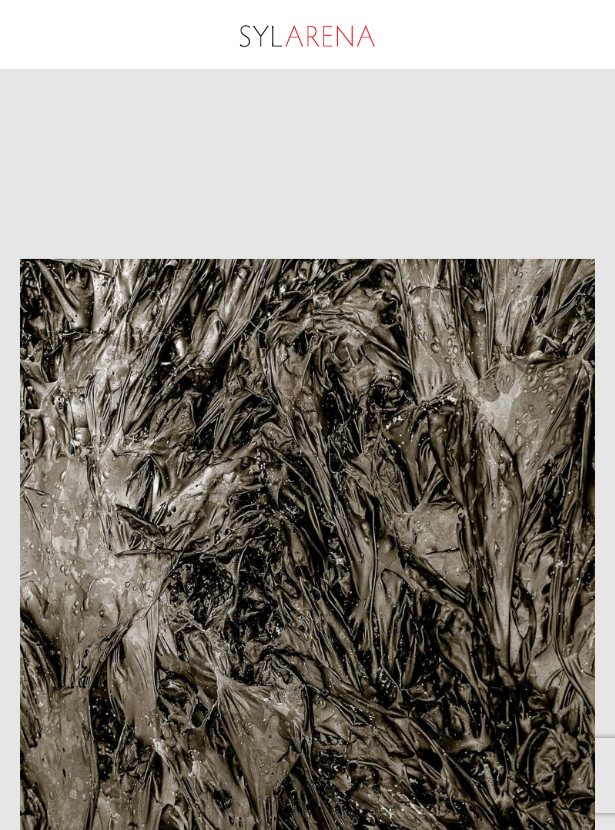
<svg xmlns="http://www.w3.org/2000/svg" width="615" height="830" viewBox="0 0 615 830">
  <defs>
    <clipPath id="clip1"><path d="M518 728H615V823H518ZM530.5 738H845.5C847 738 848 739 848 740.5V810.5C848 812 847 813 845.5 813H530.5C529 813 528 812 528 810.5V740.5C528 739 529 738 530.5 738Z" clip-rule="evenodd"/></clipPath>
    <filter id="blur1" x="-50%" y="-200%" width="200%" height="500%"><feGaussianBlur stdDeviation="3"/></filter>
  </defs>
  <rect width="100%" height="100%" fill="#e6e6e6"/>
  <rect x="0" y="0" width="615" height="69" fill="#ffffff"/>
  <image x="239" y="25" width="136" height="23" href="img1.png"/>
  <g clip-path="url(#clip1)">
    <rect x="528" y="738" width="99" height="75" rx="2.5" fill="#808080" filter="url(#blur1)"/>
  </g>
  <image x="20" y="258" width="575" height="572" href="img2.png"/>
</svg>
